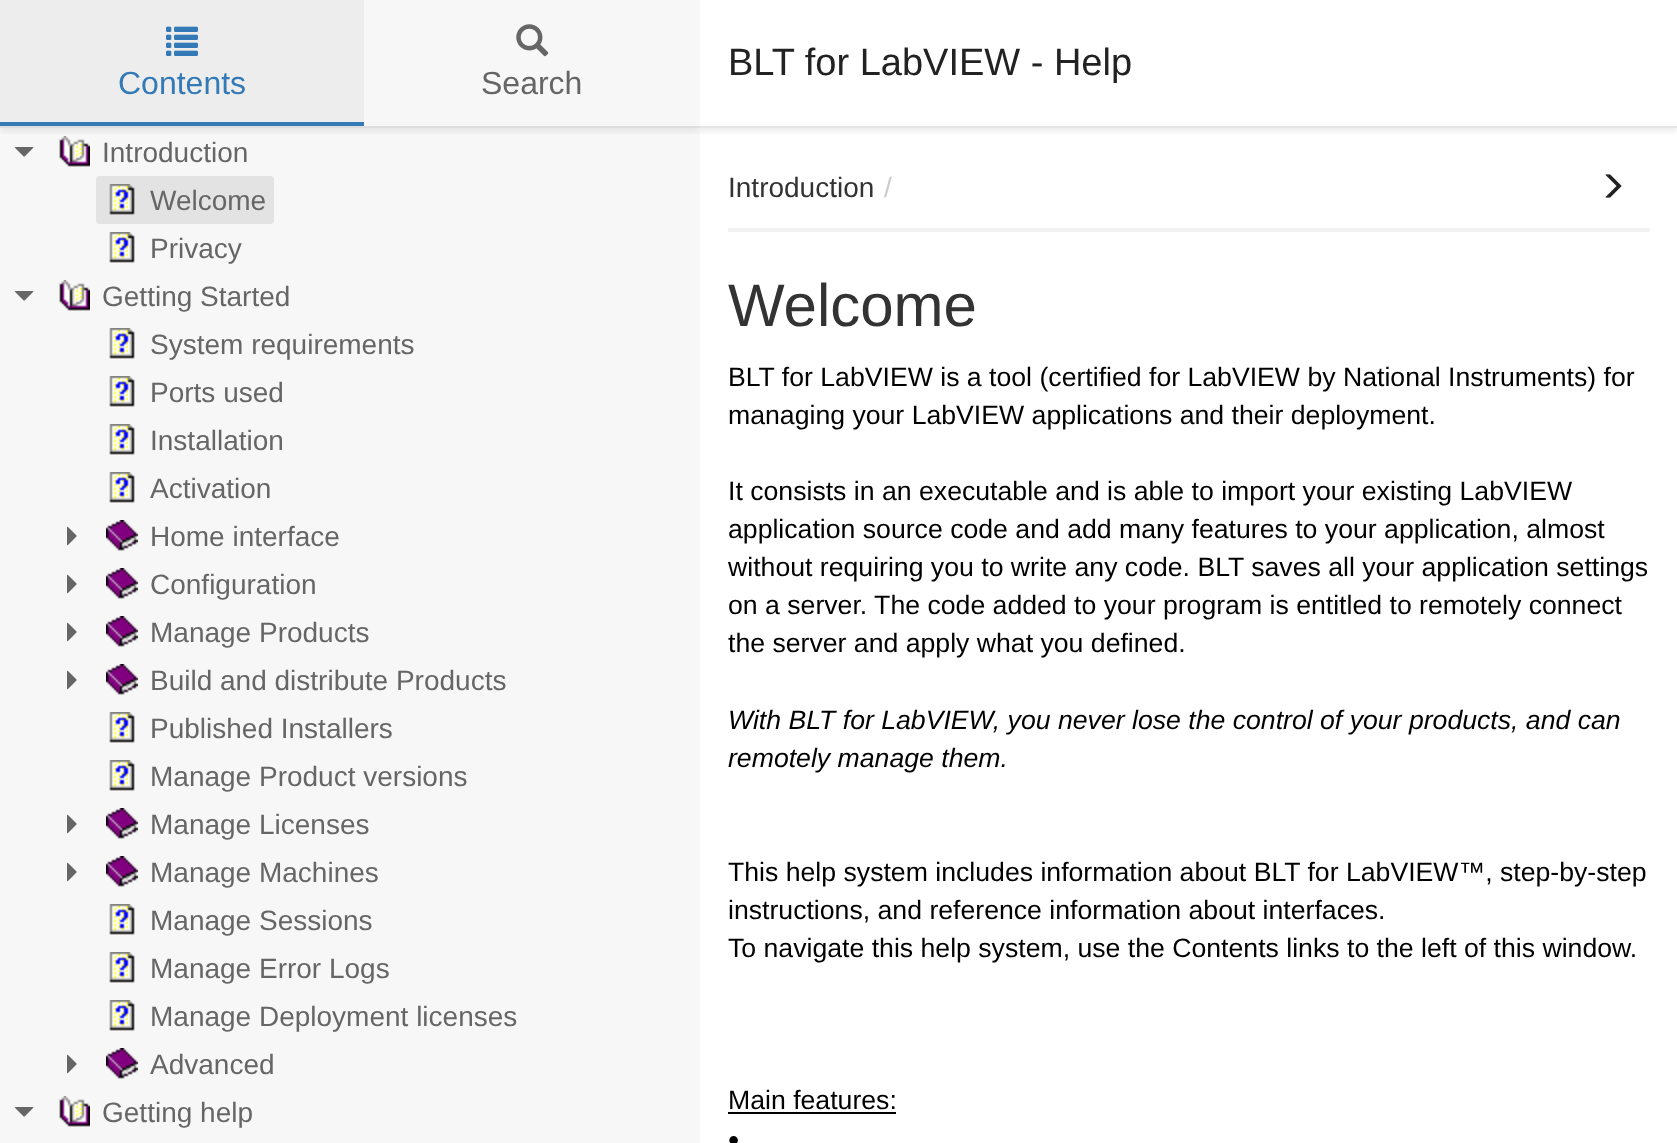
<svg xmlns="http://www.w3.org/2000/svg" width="1677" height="1143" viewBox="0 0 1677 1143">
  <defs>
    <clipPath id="clip1"><rect x="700" y="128" width="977" height="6"/></clipPath>
    <filter id="blur1" x="-50%" y="-200%" width="200%" height="500%"><feGaussianBlur stdDeviation="5"/></filter>
    <clipPath id="clip2"><rect x="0" y="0" width="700" height="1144"/></clipPath>
    <clipPath id="clip3"><rect x="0" y="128" width="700" height="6"/></clipPath>
  </defs>
  <rect width="100%" height="100%" fill="#ffffff"/>
  <g clip-path="url(#clip1)">
    <rect x="0" y="2" width="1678" height="128" fill="#000000" fill-opacity="0.1" filter="url(#blur1)"/>
  </g>
  <rect x="700" y="126" width="977" height="2" fill="#e6e6e6"/>
  <text x="728" y="75" font-family="Liberation Sans" font-size="38" fill="#222222">BLT for LabVIEW - Help</text>
  <rect x="0" y="0" width="700" height="1143" fill="#f7f7f7"/>
  <g clip-path="url(#clip2)">
    <g clip-path="url(#clip3)">
      <rect x="0" y="2" width="700" height="128" fill="#000000" fill-opacity="0.1" filter="url(#blur1)"/>
    </g>
  </g>
  <rect x="0" y="126" width="700" height="2" fill="#dedede"/>
  <rect x="0" y="0" width="364" height="122" fill="#ededed"/>
  <image x="166" y="26" width="32" height="30" href="img1.png"/>
  <text x="118" y="94" font-family="Liberation Sans" font-size="32" fill="#337ab7">Contents</text>
  <rect x="0" y="122" width="364" height="4" fill="#337ab7"/>
  <image x="516" y="24" width="33" height="33" href="img2.png"/>
  <text x="481" y="94" font-family="Liberation Sans" font-size="32" fill="#666666">Search</text>
  <image x="15" y="147" width="19" height="10" href="img3.png"/>
  <image x="59" y="136" width="31" height="31" href="img4.png"/>
  <text x="102" y="162" font-family="Liberation Sans" font-size="28" fill="#666666">Introduction</text>
  <rect x="96" y="176" width="178" height="48" rx="4" fill="#e3e3e3"/>
  <image x="109" y="184" width="26" height="31" href="img5.png"/>
  <text x="150" y="210" font-family="Liberation Sans" font-size="28" fill="#666666">Welcome</text>
  <image x="109" y="232" width="26" height="31" href="img6.png"/>
  <text x="150" y="258" font-family="Liberation Sans" font-size="28" fill="#666666">Privacy</text>
  <image x="15" y="291" width="19" height="10" href="img3.png"/>
  <image x="59" y="280" width="31" height="31" href="img7.png"/>
  <text x="102" y="306" font-family="Liberation Sans" font-size="28" fill="#666666">Getting Started</text>
  <image x="109" y="328" width="26" height="31" href="img6.png"/>
  <text x="150" y="354" font-family="Liberation Sans" font-size="28" fill="#666666">System requirements</text>
  <image x="109" y="376" width="26" height="31" href="img6.png"/>
  <text x="150" y="402" font-family="Liberation Sans" font-size="28" fill="#666666">Ports used</text>
  <image x="109" y="424" width="26" height="31" href="img6.png"/>
  <text x="150" y="450" font-family="Liberation Sans" font-size="28" fill="#666666">Installation</text>
  <image x="109" y="472" width="26" height="31" href="img6.png"/>
  <text x="150" y="498" font-family="Liberation Sans" font-size="28" fill="#666666">Activation</text>
  <image x="67" y="526" width="10" height="20" href="img8.png"/>
  <image x="106" y="520" width="32" height="31" href="img9.png"/>
  <text x="150" y="546" font-family="Liberation Sans" font-size="28" fill="#666666">Home interface</text>
  <image x="67" y="574" width="10" height="20" href="img8.png"/>
  <image x="106" y="568" width="32" height="31" href="img9.png"/>
  <text x="150" y="594" font-family="Liberation Sans" font-size="28" fill="#666666">Configuration</text>
  <image x="67" y="622" width="10" height="20" href="img8.png"/>
  <image x="106" y="616" width="32" height="31" href="img9.png"/>
  <text x="150" y="642" font-family="Liberation Sans" font-size="28" fill="#666666">Manage Products</text>
  <image x="67" y="670" width="10" height="20" href="img8.png"/>
  <image x="106" y="664" width="32" height="31" href="img9.png"/>
  <text x="150" y="690" font-family="Liberation Sans" font-size="28" fill="#666666">Build and distribute Products</text>
  <image x="109" y="712" width="26" height="31" href="img6.png"/>
  <text x="150" y="738" font-family="Liberation Sans" font-size="28" fill="#666666">Published Installers</text>
  <image x="109" y="760" width="26" height="31" href="img6.png"/>
  <text x="150" y="786" font-family="Liberation Sans" font-size="28" fill="#666666">Manage Product versions</text>
  <image x="67" y="814" width="10" height="20" href="img8.png"/>
  <image x="106" y="808" width="32" height="31" href="img9.png"/>
  <text x="150" y="834" font-family="Liberation Sans" font-size="28" fill="#666666">Manage Licenses</text>
  <image x="67" y="862" width="10" height="20" href="img8.png"/>
  <image x="106" y="856" width="32" height="31" href="img9.png"/>
  <text x="150" y="882" font-family="Liberation Sans" font-size="28" fill="#666666">Manage Machines</text>
  <image x="109" y="904" width="26" height="31" href="img6.png"/>
  <text x="150" y="930" font-family="Liberation Sans" font-size="28" fill="#666666">Manage Sessions</text>
  <image x="109" y="952" width="26" height="31" href="img6.png"/>
  <text x="150" y="978" font-family="Liberation Sans" font-size="28" fill="#666666">Manage Error Logs</text>
  <image x="109" y="1000" width="26" height="31" href="img6.png"/>
  <text x="150" y="1026" font-family="Liberation Sans" font-size="28" fill="#666666">Manage Deployment licenses</text>
  <image x="67" y="1054" width="10" height="20" href="img8.png"/>
  <image x="106" y="1048" width="32" height="31" href="img9.png"/>
  <text x="150" y="1074" font-family="Liberation Sans" font-size="28" fill="#666666">Advanced</text>
  <image x="15" y="1107" width="19" height="10" href="img3.png"/>
  <image x="59" y="1096" width="31" height="31" href="img7.png"/>
  <text x="102" y="1122" font-family="Liberation Sans" font-size="28" fill="#666666">Getting help</text>
  <rect x="728" y="228" width="922" height="4" fill="#f2f2f2"/>
  <text x="728" y="197" font-family="Liberation Sans" font-size="28" fill="#333333">Introduction</text>
  <text x="884" y="197" font-family="Liberation Sans" font-size="28" fill="#cccccc">/</text>
  <image x="1605" y="174" width="17" height="24" href="img10.png"/>
  <text x="728" y="326" font-family="Liberation Sans" font-size="60" fill="#333333">Welcome</text>
  <text x="728" y="386" font-family="Liberation Sans" font-size="26.65" fill="#000000">BLT for LabVIEW is a tool (certified for LabVIEW by National Instruments) for</text>
  <text x="728" y="424" font-family="Liberation Sans" font-size="26.65" fill="#000000">managing your LabVIEW applications and their deployment.</text>
  <text x="728" y="500" font-family="Liberation Sans" font-size="26.65" fill="#000000">It consists in an executable and is able to import your existing LabVIEW</text>
  <text x="728" y="538" font-family="Liberation Sans" font-size="26.65" fill="#000000">application source code and add many features to your application, almost</text>
  <text x="728" y="576" font-family="Liberation Sans" font-size="26.65" fill="#000000">without requiring you to write any code. BLT saves all your application settings</text>
  <text x="728" y="614" font-family="Liberation Sans" font-size="26.65" fill="#000000">on a server. The code added to your program is entitled to remotely connect</text>
  <text x="728" y="652" font-family="Liberation Sans" font-size="26.65" fill="#000000">the server and apply what you defined.</text>
  <text x="728" y="729" font-family="Liberation Sans" font-size="26.65" font-style="italic" fill="#000000">With BLT for LabVIEW, you never lose the control of your products, and can</text>
  <text x="728" y="767" font-family="Liberation Sans" font-size="26.65" font-style="italic" fill="#000000">remotely manage them.</text>
  <text x="728" y="881" font-family="Liberation Sans" font-size="26.65" fill="#000000">This help system includes information about BLT for LabVIEW™, step-by-step</text>
  <text x="728" y="919" font-family="Liberation Sans" font-size="26.65" fill="#000000">instructions, and reference information about interfaces.</text>
  <text x="728" y="957" font-family="Liberation Sans" font-size="26.65" fill="#000000">To navigate this help system, use the Contents links to the left of this window.</text>
  <text x="728" y="1109" font-family="Liberation Sans" font-size="26.65" fill="#000000">Main features:</text>
  <rect x="728" y="1112" width="168" height="2" fill="#000000"/>
  <text x="728" y="1151" font-family="Liberation Sans" font-size="32" fill="#000000">•</text>
</svg>
